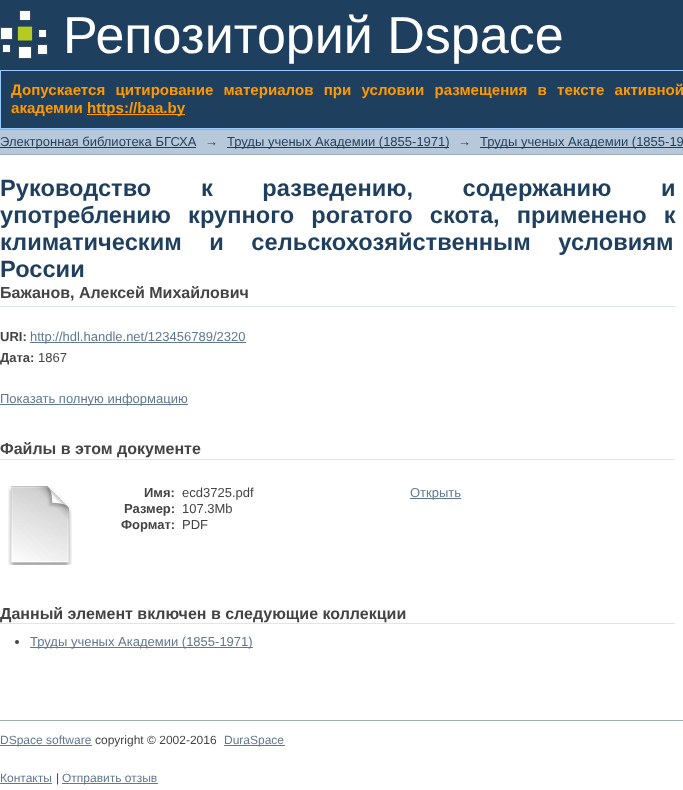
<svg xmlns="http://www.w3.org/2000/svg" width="683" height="790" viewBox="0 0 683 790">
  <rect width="100%" height="100%" fill="#ffffff"/>
  <rect x="0" y="0" width="683" height="128" fill="#1f3f5e"/>
  <image x="0" y="10" width="48" height="49" href="img1.png"/>
  <text x="63" y="53" font-family="Liberation Sans" font-size="52" fill="#ffffff">Репозиторий Dspace</text>
  <rect x="0.5" y="70.5" width="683" height="58" fill="none" stroke="#99ccff"/>
  <text x="11" y="95" word-spacing="6" font-family="Liberation Sans" font-size="15.1" font-weight="bold" fill="#ff9900">Допускается цитирование материалов при условии размещения в тексте активной</text>
  <text x="11" y="113" font-family="Liberation Sans" font-size="15.1" font-weight="bold" fill="#ff9900">академии</text>
  <rect x="87" y="114" width="98" height="1" fill="#ff9900"/>
  <text x="87" y="113" font-family="Liberation Sans" font-size="15.1" font-weight="bold" fill="#ff9900">https://baa.by</text>
  <rect x="0" y="130" width="683" height="24" fill="#b6c8d9"/>
  <rect x="0" y="129" width="683" height="1" fill="#9cacba"/>
  <rect x="0" y="154" width="683" height="1" fill="#9cacba"/>
  <rect x="0" y="147" width="196" height="1" fill="#1f3f5e"/>
  <text x="0" y="146" font-family="Liberation Sans" font-size="13" fill="#1f3f5e">Электронная библиотека БГСХА</text>
  <text x="205" y="146" font-family="Liberation Sans" font-size="13" fill="#1f3f5e">→</text>
  <rect x="227" y="147" width="222" height="1" fill="#1f3f5e"/>
  <text x="227" y="146" font-family="Liberation Sans" font-size="13" fill="#1f3f5e">Труды ученых Академии (1855-1971)</text>
  <text x="458" y="146" font-family="Liberation Sans" font-size="13" fill="#1f3f5e">→</text>
  <rect x="480" y="147" width="203" height="1" fill="#1f3f5e"/>
  <text x="480" y="146" font-family="Liberation Sans" font-size="13" fill="#1f3f5e">Труды ученых Академии (1855-19</text>
  <text x="0" y="196" word-spacing="43" font-family="Liberation Sans" font-size="23.65" font-weight="bold" fill="#1f3f5e">Руководство к разведению, содержанию и</text>
  <text x="0" y="223" word-spacing="10.5" font-family="Liberation Sans" font-size="23.65" font-weight="bold" fill="#1f3f5e">употреблению крупного рогатого скота, применено к</text>
  <text x="0" y="250" word-spacing="21" font-family="Liberation Sans" font-size="23.65" font-weight="bold" fill="#1f3f5e">климатическим и сельскохозяйственным условиям</text>
  <text x="0" y="277" font-family="Liberation Sans" font-size="23.65" font-weight="bold" fill="#1f3f5e">России</text>
  <rect x="0" y="306" width="675" height="1" fill="#d8e8eb"/>
  <text x="0" y="298" font-family="Liberation Sans" font-size="16" font-weight="bold" fill="#444444">Бажанов, Алексей Михайлович</text>
  <text x="0" y="341" font-family="Liberation Sans" font-size="13" font-weight="bold" fill="#444444">URI:</text>
  <rect x="30" y="342" width="216" height="1" fill="#607890"/>
  <text x="30" y="341" font-family="Liberation Sans" font-size="13" fill="#607890">http://hdl.handle.net/123456789/2320</text>
  <text x="0" y="362" font-family="Liberation Sans" font-size="13" font-weight="bold" fill="#444444">Дата:</text>
  <text x="38" y="362" font-family="Liberation Sans" font-size="13" fill="#444444">1867</text>
  <rect x="0" y="404" width="188" height="1" fill="#607890"/>
  <text x="0" y="403" font-family="Liberation Sans" font-size="13" fill="#607890">Показать полную информацию</text>
  <rect x="0" y="459" width="675" height="1" fill="#d8e8eb"/>
  <text x="0" y="454" font-family="Liberation Sans" font-size="16" font-weight="bold" fill="#444444">Файлы в этом документе</text>
  <image x="8" y="486" width="64" height="79" href="img2.png"/>
  <text x="144" y="497" font-family="Liberation Sans" font-size="13" font-weight="bold" fill="#444444">Имя:</text>
  <text x="182" y="497" font-family="Liberation Sans" font-size="13" fill="#444444">ecd3725.pdf</text>
  <text x="124" y="513" font-family="Liberation Sans" font-size="13" font-weight="bold" fill="#444444">Размер:</text>
  <text x="182" y="513" font-family="Liberation Sans" font-size="13" fill="#444444">107.3Mb</text>
  <text x="121" y="529" font-family="Liberation Sans" font-size="13" font-weight="bold" fill="#444444">Формат:</text>
  <text x="182" y="529" font-family="Liberation Sans" font-size="13" fill="#444444">PDF</text>
  <rect x="410" y="498" width="51" height="1" fill="#607890"/>
  <text x="410" y="497" font-family="Liberation Sans" font-size="13" fill="#607890">Открыть</text>
  <rect x="0" y="623" width="675" height="1" fill="#d8e8eb"/>
  <text x="0" y="619" font-family="Liberation Sans" font-size="16" font-weight="bold" fill="#444444">Данный элемент включен в следующие коллекции</text>
  <circle cx="17" cy="642" r="2" fill="#444444"/>
  <rect x="30" y="647" width="223" height="1" fill="#607890"/>
  <text x="30" y="646" font-family="Liberation Sans" font-size="13" fill="#607890">Труды ученых Академии (1855-1971)</text>
  <rect x="0" y="720" width="683" height="1" fill="#9cacba"/>
  <rect x="0" y="745" width="92" height="1" fill="#607890"/>
  <text x="0" y="744" font-family="Liberation Sans" font-size="12" fill="#607890">DSpace software</text>
  <text x="95" y="744" font-family="Liberation Sans" font-size="12" fill="#444444">copyright © 2002-2016</text>
  <rect x="224" y="745" width="61" height="1" fill="#607890"/>
  <text x="224" y="744" font-family="Liberation Sans" font-size="12" fill="#607890">DuraSpace</text>
  <text x="0" y="782" font-family="Liberation Sans" font-size="12" fill="#607890">Контакты</text>
  <rect x="0" y="783" width="52" height="1" fill="#607890"/>
  <text x="56" y="782" font-family="Liberation Sans" font-size="12" fill="#444444">|</text>
  <rect x="62" y="783" width="96" height="1" fill="#607890"/>
  <text x="62" y="782" font-family="Liberation Sans" font-size="12" fill="#607890">Отправить отзыв</text>
</svg>
